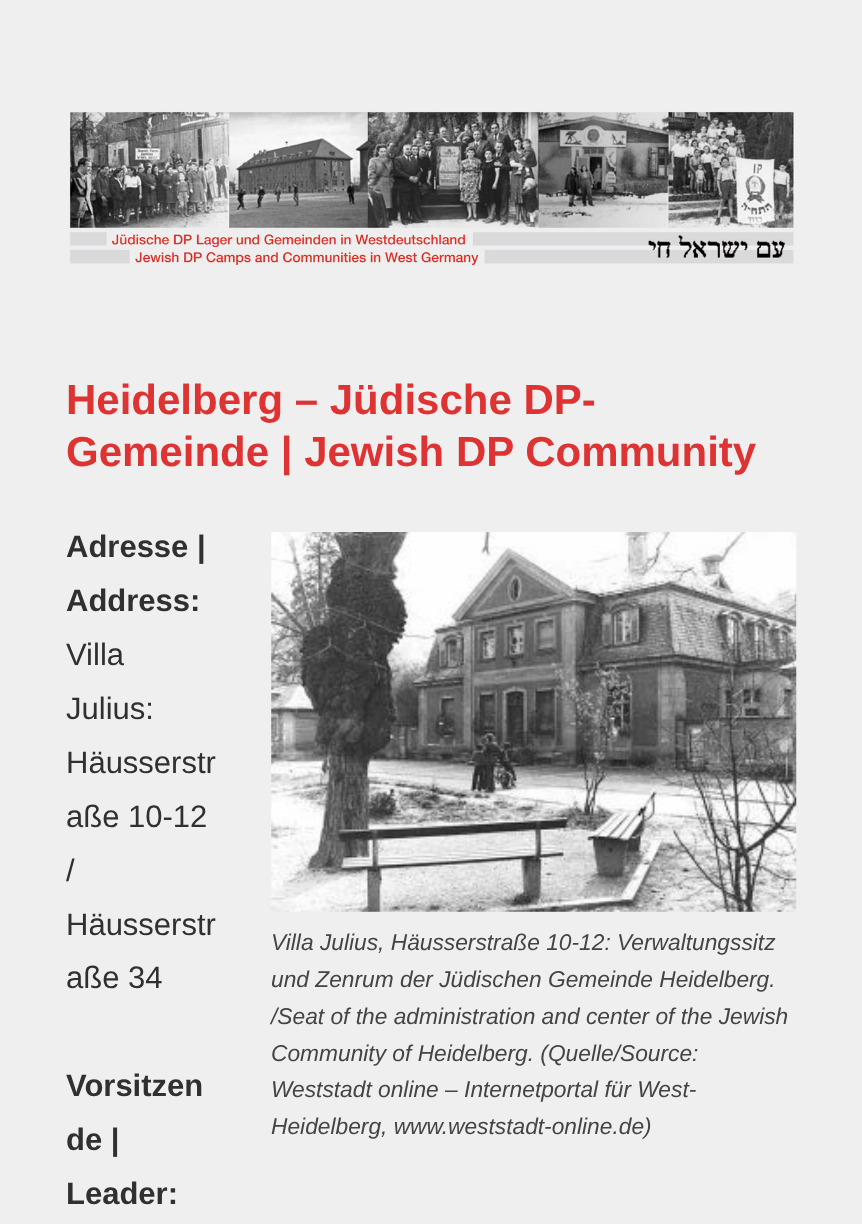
<svg xmlns="http://www.w3.org/2000/svg" width="862" height="1224" viewBox="0 0 862 1224">
  <rect width="100%" height="100%" fill="#efefef"/>
  <image x="69" y="111" width="726" height="155" href="img1.png"/>
  <text x="66" y="414" font-family="Liberation Sans" font-size="42" font-weight="bold" fill="#dd3333">Heidelberg – Jüdische DP-</text>
  <text x="66" y="466" font-family="Liberation Sans" font-size="42" font-weight="bold" fill="#dd3333">Gemeinde | Jewish DP Community</text>
  <text x="66" y="557" font-family="Liberation Sans" font-size="31" font-weight="bold" fill="#303030">Adresse |</text>
  <text x="66" y="611" font-family="Liberation Sans" font-size="31" font-weight="bold" fill="#303030">Address:</text>
  <text x="66" y="665" font-family="Liberation Sans" font-size="31" fill="#303030">Villa</text>
  <text x="66" y="719" font-family="Liberation Sans" font-size="31" fill="#303030">Julius:</text>
  <text x="66" y="773" font-family="Liberation Sans" font-size="31" fill="#303030">Häusserstr</text>
  <text x="66" y="827" font-family="Liberation Sans" font-size="31" fill="#303030">aße 10-12</text>
  <text x="66" y="881" font-family="Liberation Sans" font-size="31" fill="#303030">/</text>
  <text x="66" y="935" font-family="Liberation Sans" font-size="31" fill="#303030">Häusserstr</text>
  <text x="66" y="988" font-family="Liberation Sans" font-size="31" fill="#303030">aße 34</text>
  <text x="66" y="1096" font-family="Liberation Sans" font-size="31" font-weight="bold" fill="#303030">Vorsitzen</text>
  <text x="66" y="1150" font-family="Liberation Sans" font-size="31" font-weight="bold" fill="#303030">de |</text>
  <text x="66" y="1204" font-family="Liberation Sans" font-size="31" font-weight="bold" fill="#303030">Leader:</text>
  <image x="271" y="532" width="526" height="380" href="img2.png"/>
  <text x="271" y="950" font-family="Liberation Sans" font-size="22.75" font-style="italic" fill="#444444">Villa Julius, Häusserstraße 10-12: Verwaltungssitz</text>
  <text x="271" y="987" font-family="Liberation Sans" font-size="22.75" font-style="italic" fill="#444444">und Zenrum der Jüdischen Gemeinde Heidelberg.</text>
  <text x="271" y="1024" font-family="Liberation Sans" font-size="22.75" font-style="italic" fill="#444444">/Seat of the administration and center of the Jewish</text>
  <text x="271" y="1061" font-family="Liberation Sans" font-size="22.75" font-style="italic" fill="#444444">Community of Heidelberg. (Quelle/Source:</text>
  <text x="271" y="1097" font-family="Liberation Sans" font-size="22.75" font-style="italic" fill="#444444">Weststadt online – Internetportal für West-</text>
  <text x="271" y="1134" font-family="Liberation Sans" font-size="22.75" font-style="italic" fill="#444444">Heidelberg, www.weststadt-online.de)</text>
</svg>
